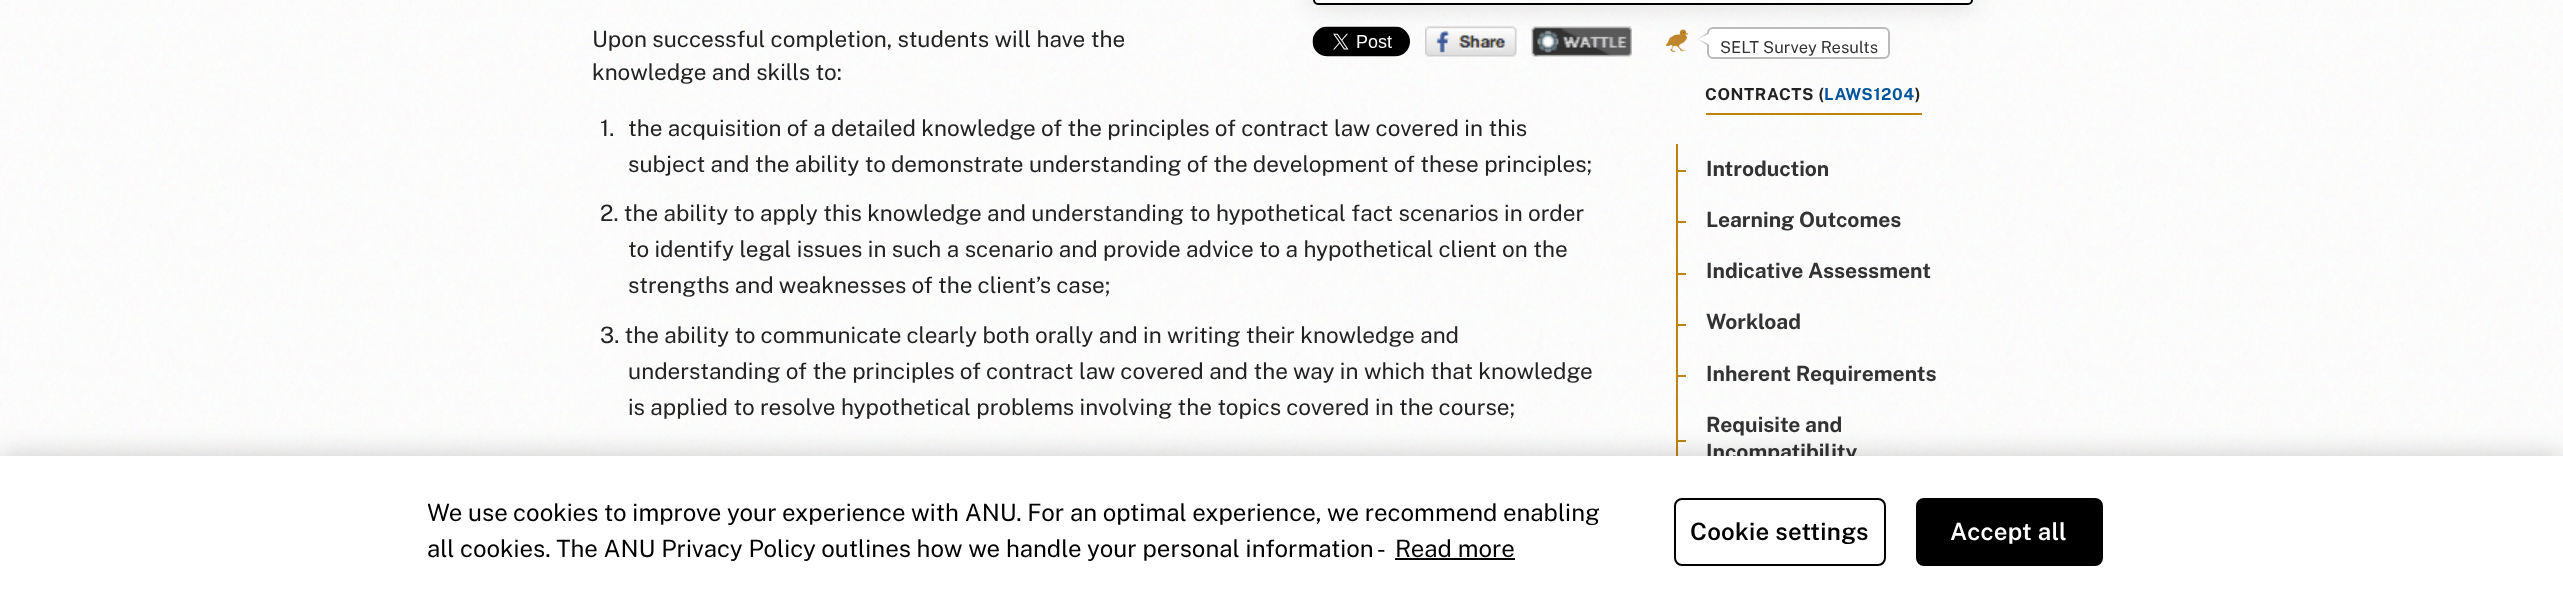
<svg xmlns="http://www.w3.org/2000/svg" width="2563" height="607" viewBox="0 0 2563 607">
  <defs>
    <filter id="blur1" x="-50%" y="-200%" width="200%" height="500%"><feGaussianBlur stdDeviation="12"/></filter>
    <filter id="blur2" x="-50%" y="-200%" width="200%" height="500%"><feGaussianBlur stdDeviation="13.5"/></filter>
    <clipPath id="clip1"><rect x="428" y="495" width="1197" height="72"/></clipPath>
  </defs>
  <rect width="100%" height="100%" fill="#ffffff"/>
  <image x="0" y="0" width="2563" height="456" href="img1.png"/>
  <text x="592" y="47" font-family="Public Sans" font-size="22.5" fill="#222222">Upon successful completion, students will have the</text>
  <text x="592" y="80" font-family="Public Sans" font-size="22.5" fill="#222222">knowledge and skills to:</text>
  <text x="600" y="136" font-family="Public Sans" font-size="22.5" fill="#222222">1.</text>
  <text x="628" y="136" font-family="Public Sans" font-size="22.5" fill="#222222">the acquisition of a detailed knowledge of the principles of contract law covered in this</text>
  <text x="628" y="172" font-family="Public Sans" font-size="22.5" fill="#222222">subject and the ability to demonstrate understanding of the development of these principles;</text>
  <text x="600" y="221" font-family="Public Sans" font-size="22.5" fill="#222222">2. the ability to apply this knowledge and understanding to hypothetical fact scenarios in order</text>
  <text x="628" y="257" font-family="Public Sans" font-size="22.5" fill="#222222">to identify legal issues in such a scenario and provide advice to a hypothetical client on the</text>
  <text x="628" y="293" font-family="Public Sans" font-size="22.5" fill="#222222">strengths and weaknesses of the client’s case;</text>
  <text x="600" y="343" font-family="Public Sans" font-size="22.5" fill="#222222">3. the ability to communicate clearly both orally and in writing their knowledge and</text>
  <text x="628" y="379" font-family="Public Sans" font-size="22.5" fill="#222222">understanding of the principles of contract law covered and the way in which that knowledge</text>
  <text x="628" y="415" font-family="Public Sans" font-size="22.5" fill="#222222">is applied to resolve hypothetical problems involving the topics covered in the course;</text>
  <rect x="1310" y="-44" width="666" height="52" rx="8" fill="#000000" fill-opacity="0.1" filter="url(#blur1)"/>
  <rect x="1314" y="-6" width="658" height="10" rx="4" fill="#ffffff" stroke="#000000" stroke-width="2"/>
  <image x="1312" y="26" width="98" height="31" href="img2.png"/>
  <image x="1425" y="26" width="92" height="31" href="img3.png"/>
  <image x="1531" y="26" width="101" height="31" href="img4.png"/>
  <image x="1665" y="29" width="24" height="23" href="img5.png"/>
  <rect x="1708" y="28" width="181" height="30" rx="5" fill="#ffffff" stroke="#bbbbbb" stroke-width="2"/>
  <path d="M1707 33V45L1698 39Z" fill="#bbbbbb"/>
  <path d="M1710 33V45L1698 39Z" fill="#ffffff"/>
  <text x="1720" y="53" font-family="Public Sans" font-size="16.5" fill="#333333">SELT Survey Results</text>
  <rect x="1706" y="113" width="216" height="2" fill="#be830e"/>
  <text x="1705" y="100" font-family="Public Sans" font-size="16.5" font-weight="bold" letter-spacing="0.6" fill="#222222">CONTRACTS (</text>
  <text x="1824" y="100" font-family="Public Sans" font-size="16.5" font-weight="bold" letter-spacing="0.6" fill="#00549e">LAWS1204</text>
  <text x="1915" y="100" font-family="Public Sans" font-size="16.5" font-weight="bold" letter-spacing="0.6" fill="#222222">)</text>
  <rect x="1676" y="144" width="2" height="312" fill="#be830e"/>
  <rect x="1677" y="170" width="9" height="2" fill="#be830e"/>
  <text x="1706" y="176" font-family="Public Sans" font-size="21" font-weight="bold" fill="#333333">Introduction</text>
  <rect x="1677" y="221" width="9" height="2" fill="#be830e"/>
  <text x="1706" y="227" font-family="Public Sans" font-size="21" font-weight="bold" fill="#333333">Learning Outcomes</text>
  <rect x="1677" y="273" width="9" height="2" fill="#be830e"/>
  <text x="1706" y="278" font-family="Public Sans" font-size="21" font-weight="bold" fill="#333333">Indicative Assessment</text>
  <rect x="1677" y="324" width="9" height="2" fill="#be830e"/>
  <text x="1706" y="329" font-family="Public Sans" font-size="21" font-weight="bold" fill="#333333">Workload</text>
  <rect x="1677" y="375" width="9" height="2" fill="#be830e"/>
  <text x="1706" y="381" font-family="Public Sans" font-size="21" font-weight="bold" fill="#333333">Inherent Requirements</text>
  <text x="1706" y="432" font-family="Public Sans" font-size="21" font-weight="bold" fill="#333333">Requisite and</text>
  <rect x="1677" y="440" width="9" height="2" fill="#be830e"/>
  <text x="1706" y="459" font-family="Public Sans" font-size="21" font-weight="bold" fill="#333333">Incompatibility</text>
  <rect x="0" y="456" width="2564" height="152" fill="#000000" fill-opacity="0.2" filter="url(#blur2)"/>
  <rect x="0" y="456" width="2563" height="151" fill="#ffffff"/>
  <g clip-path="url(#clip1)">
    <text x="427" y="521" font-family="Public Sans" font-size="24" fill="#000000">We use cookies to improve your experience with ANU. For an optimal experience, we recommend enabling</text>
  </g>
  <text x="427" y="557" font-family="Public Sans" font-size="24" fill="#000000">all cookies. The ANU Privacy Policy outlines how we handle your personal information -</text>
  <text x="1395" y="557" font-family="Public Sans" font-size="24" fill="#000000">Read more</text>
  <rect x="1395" y="558" width="120" height="2" fill="#000000"/>
  <rect x="1675" y="499" width="210" height="66" rx="7" fill="none" stroke="#000000" stroke-width="2"/>
  <text x="1690" y="540" font-family="Public Sans" font-size="24" font-weight="600" letter-spacing="0.25" fill="#000000">Cookie settings</text>
  <rect x="1917" y="499" width="185" height="66" rx="7" fill="#000000" stroke="#000000" stroke-width="2"/>
  <text x="1950" y="540" font-family="Public Sans" font-size="24" font-weight="600" letter-spacing="0.25" fill="#ffffff">Accept all</text>
</svg>
